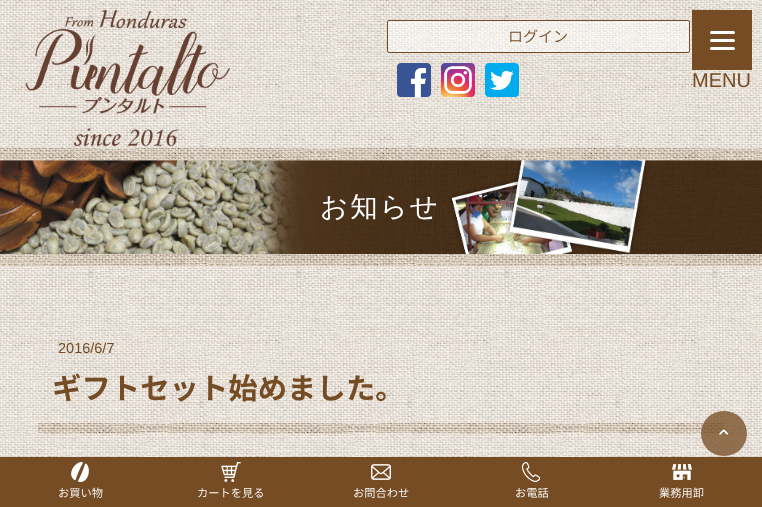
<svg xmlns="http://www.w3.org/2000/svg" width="762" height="507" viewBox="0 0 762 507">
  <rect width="100%" height="100%" fill="#ffffff"/>
  <image x="0" y="0" width="762" height="457" href="img1.png"/>
  <image x="25" y="10" width="205" height="104" href="img2.png"/>
  <image x="73" y="128" width="106" height="19" href="img3.png"/>
  <rect x="387.5" y="20.5" width="302" height="32" rx="1.5" fill="#ffffff" fill-opacity="0.5" stroke="#754c24"/>
  <text x="508" y="42" font-family="Noto Sans JP" font-size="15" font-weight="300" fill="#754c24">ログイン</text>
  <image x="397" y="63" width="34" height="34" href="img4.png"/>
  <image x="441" y="63" width="34" height="34" href="img5.png"/>
  <image x="485" y="63" width="34" height="34" href="img6.png"/>
  <rect x="692" y="10" width="60" height="60" fill="#754c24"/>
  <rect x="710" y="39" width="25" height="3" rx="1.5" fill="#ffffff"/>
  <rect x="710" y="31" width="25" height="3" rx="1.5" fill="#ffffff"/>
  <rect x="710" y="47" width="25" height="3" rx="1.5" fill="#ffffff"/>
  <text x="692" y="87" font-family="Liberation Sans" font-size="20" fill="#754c24">MENU</text>
  <image x="0" y="148" width="762" height="118" href="img7.png"/>
  <image x="0" y="160" width="762" height="94" href="img8.png"/>
  <text x="320" y="216" font-family="WenQuanYi Zen Hei" font-size="27.5" font-weight="500" letter-spacing="2" fill="#ffffff">お知らせ</text>
  <text x="58" y="353" font-family="Liberation Sans" font-size="14.5" fill="#754c24">2016/6/7</text>
  <text x="52" y="399" font-family="Noto Sans JP" font-size="29.4" font-weight="bold" fill="#754c24">ギフトセット始めました。</text>
  <image x="38" y="423" width="686" height="10" href="img9.png"/>
  <rect x="701" y="411" width="46" height="45" rx="22.5" fill="#764d25" fill-opacity="0.77"/>
  <image x="719" y="429" width="10" height="6" href="img10.png"/>
  <rect x="0" y="457" width="762" height="50" fill="#754c24"/>
  <image x="71" y="462" width="18" height="20" href="img11.png"/>
  <text x="58" y="497" font-family="Noto Sans JP" font-size="11.25" font-weight="300" fill="#ffffff">お買い物</text>
  <image x="221" y="462" width="20" height="20" href="img12.png"/>
  <text x="197" y="497" font-family="Noto Sans JP" font-size="11.25" font-weight="300" fill="#ffffff">カートを見る</text>
  <image x="371" y="464" width="20" height="16" href="img13.png"/>
  <text x="353" y="497" font-family="Noto Sans JP" font-size="11.25" font-weight="300" fill="#ffffff">お問合わせ</text>
  <image x="521" y="462" width="20" height="20" href="img14.png"/>
  <text x="515" y="497" font-family="Noto Sans JP" font-size="11.25" font-weight="300" fill="#ffffff">お電話</text>
  <image x="672" y="464" width="20" height="16" href="img15.png"/>
  <text x="659" y="497" font-family="Noto Sans JP" font-size="11.25" font-weight="300" fill="#ffffff">業務用卸</text>
</svg>
